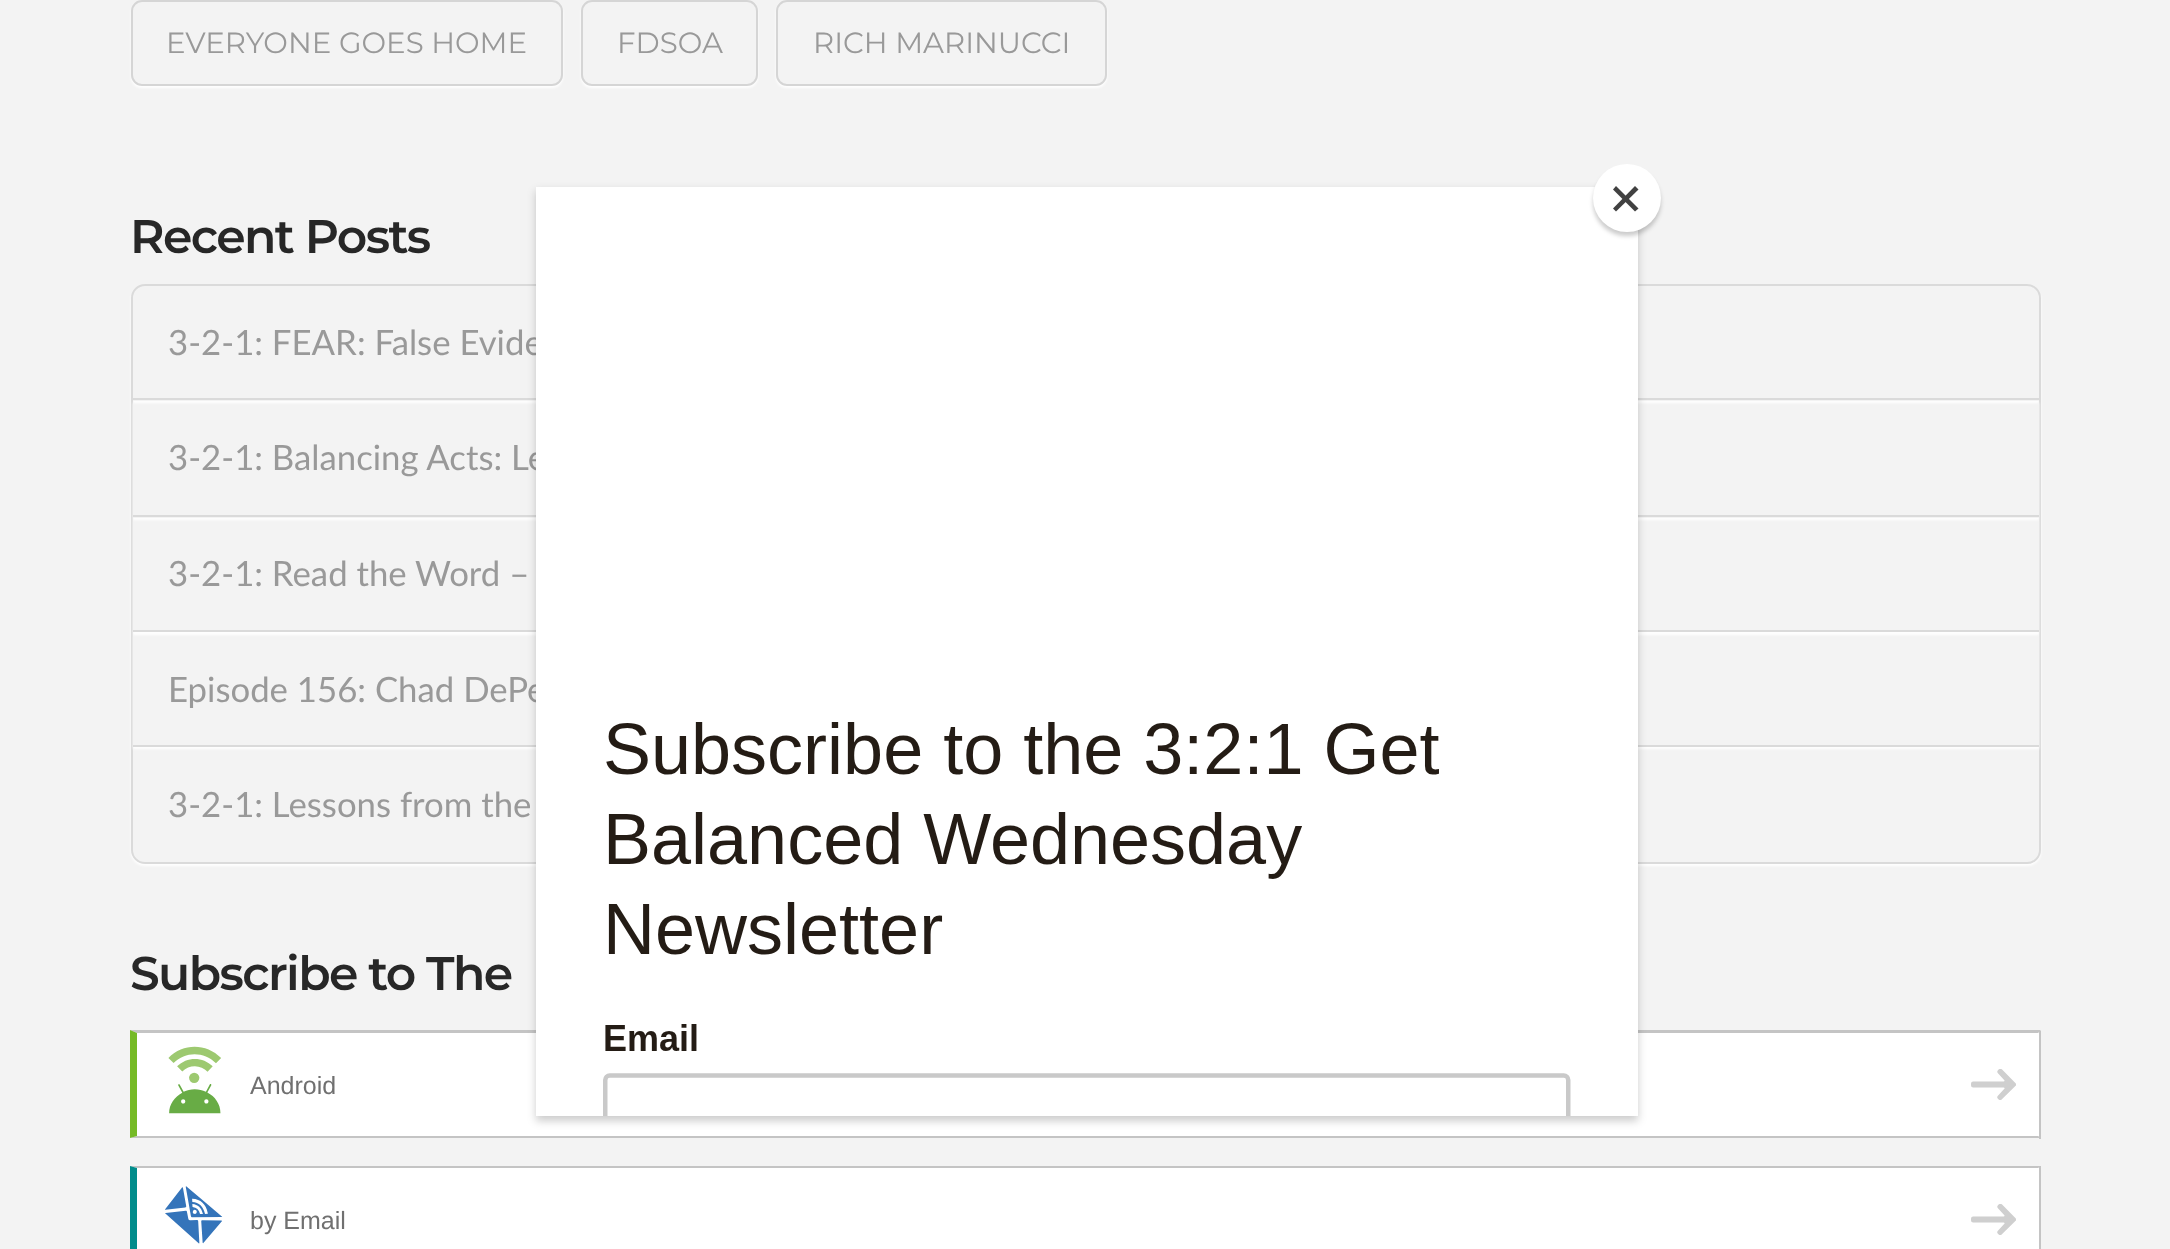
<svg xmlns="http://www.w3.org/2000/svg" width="2170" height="1249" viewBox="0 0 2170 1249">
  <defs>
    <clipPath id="clip1"><path d="M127 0H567V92H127ZM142 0H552C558 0 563 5 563 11V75C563 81 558 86 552 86H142C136 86 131 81 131 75V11C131 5 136 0 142 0Z" clip-rule="evenodd"/></clipPath>
    <filter id="blur1" x="-50%" y="-200%" width="200%" height="500%"><feGaussianBlur stdDeviation="1"/></filter>
    <clipPath id="clip2"><path d="M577 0H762V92H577ZM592 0H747C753 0 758 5 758 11V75C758 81 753 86 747 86H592C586 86 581 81 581 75V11C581 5 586 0 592 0Z" clip-rule="evenodd"/></clipPath>
    <clipPath id="clip3"><path d="M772 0H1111V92H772ZM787 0H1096C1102 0 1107 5 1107 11V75C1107 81 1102 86 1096 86H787C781 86 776 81 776 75V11C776 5 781 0 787 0Z" clip-rule="evenodd"/></clipPath>
    <clipPath id="clip4"><path d="M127 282H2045V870H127ZM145 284H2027C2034.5 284 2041 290.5 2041 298V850C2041 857.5 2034.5 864 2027 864H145C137.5 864 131 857.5 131 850V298C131 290.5 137.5 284 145 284Z" clip-rule="evenodd"/></clipPath>
    <clipPath id="clip5"><rect x="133" y="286" width="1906" height="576" rx="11"/></clipPath>
    <clipPath id="clip6"><path d="M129 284H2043V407H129ZM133 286H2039V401H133Z" clip-rule="evenodd"/></clipPath>
    <clipPath id="clip7"><path d="M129 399H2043V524H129ZM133 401H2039V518H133Z" clip-rule="evenodd"/></clipPath>
    <clipPath id="clip8"><path d="M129 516H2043V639H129ZM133 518H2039V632H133Z" clip-rule="evenodd"/></clipPath>
    <clipPath id="clip9"><path d="M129 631H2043V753H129ZM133 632H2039V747H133Z" clip-rule="evenodd"/></clipPath>
    <filter id="blur2" x="-50%" y="-200%" width="200%" height="500%"><feGaussianBlur stdDeviation="4.5"/></filter>
    <filter id="blur3" x="-50%" y="-200%" width="200%" height="500%"><feGaussianBlur stdDeviation="2"/></filter>
  </defs>
  <rect width="100%" height="100%" fill="#f3f3f3"/>
  <g clip-path="url(#clip1)">
    <rect x="131" y="2" width="432" height="86" rx="11" fill="#ffffff" fill-opacity="0.95" filter="url(#blur1)"/>
  </g>
  <rect x="132" y="1" width="430" height="84" rx="10" fill="none" stroke="#000000" stroke-opacity="0.12" stroke-width="2"/>
  <text x="166" y="53" font-family="Montserrat" font-size="29.25" fill="#999999">EVERYONE GOES HOME</text>
  <g clip-path="url(#clip2)">
    <rect x="581" y="2" width="177" height="86" rx="11" fill="#ffffff" fill-opacity="0.95" filter="url(#blur1)"/>
  </g>
  <rect x="582" y="1" width="175" height="84" rx="10" fill="none" stroke="#000000" stroke-opacity="0.12" stroke-width="2"/>
  <text x="617" y="53" font-family="Montserrat" font-size="29.25" fill="#999999">FDSOA</text>
  <g clip-path="url(#clip3)">
    <rect x="776" y="2" width="331" height="86" rx="11" fill="#ffffff" fill-opacity="0.95" filter="url(#blur1)"/>
  </g>
  <rect x="777" y="1" width="329" height="84" rx="10" fill="none" stroke="#000000" stroke-opacity="0.12" stroke-width="2"/>
  <text x="813" y="53" font-family="Montserrat" font-size="29.25" fill="#999999">RICH MARINUCCI</text>
  <text x="130" y="253" font-family="Montserrat" font-size="47.25" font-weight="600" letter-spacing="-1.6" fill="#272727">Recent Posts</text>
  <g clip-path="url(#clip4)">
    <rect x="131" y="286" width="1910" height="580" rx="14" fill="#ffffff" fill-opacity="0.95" filter="url(#blur1)"/>
  </g>
  <rect x="132" y="285" width="1908" height="578" rx="13" fill="none" stroke="#000000" stroke-opacity="0.1" stroke-width="2"/>
  <g clip-path="url(#clip5)">
    <g clip-path="url(#clip6)">
      <rect x="133" y="288" width="1906" height="115" fill="#ffffff" fill-opacity="0.95" filter="url(#blur1)"/>
    </g>
  </g>
  <rect x="133" y="398" width="1906" height="2" fill="#000000" fill-opacity="0.1"/>
  <text x="168" y="355" font-family="Lato" font-size="34.75" fill="#999999">3-2-1: FEAR: False Evide</text>
  <g clip-path="url(#clip7)">
    <rect x="133" y="403" width="1906" height="117" fill="#ffffff" fill-opacity="0.95" filter="url(#blur1)"/>
  </g>
  <rect x="133" y="515" width="1906" height="2" fill="#000000" fill-opacity="0.1"/>
  <text x="168" y="470" font-family="Lato" font-size="34.75" fill="#999999">3-2-1: Balancing Acts: Le</text>
  <g clip-path="url(#clip8)">
    <rect x="133" y="520" width="1906" height="115" fill="#ffffff" fill-opacity="0.95" filter="url(#blur1)"/>
  </g>
  <rect x="133" y="630" width="1906" height="2" fill="#000000" fill-opacity="0.1"/>
  <text x="168" y="586" font-family="Lato" font-size="34.75" fill="#999999">3-2-1: Read the Word –</text>
  <g clip-path="url(#clip9)">
    <rect x="133" y="635" width="1906" height="114" fill="#ffffff" fill-opacity="0.95" filter="url(#blur1)"/>
  </g>
  <rect x="133" y="745" width="1906" height="2" fill="#000000" fill-opacity="0.1"/>
  <text x="168" y="702" font-family="Lato" font-size="34.75" fill="#999999">Episode 156: Chad DePe</text>
  <text x="168" y="817" font-family="Lato" font-size="34.75" fill="#999999">3-2-1: Lessons from the</text>
  <text x="130" y="990" font-family="Montserrat" font-size="47.25" font-weight="600" letter-spacing="-1.6" fill="#272727">Subscribe to The</text>
  <rect x="137" y="1033" width="1902" height="103" fill="#ffffff"/>
  <path d="M130 1030H2041L2038 1033H137Z" fill="#c4c4c4"/>
  <rect x="2039" y="1031" width="2" height="108" fill="#c4c4c4"/>
  <path d="M2041 1138H130L137 1136H2038Z" fill="#c4c4c4"/>
  <path d="M130 1138V1030L137 1033V1136Z" fill="#75ba26"/>
  <image x="168" y="1046" width="53" height="68" href="img1.png"/>
  <text x="250" y="1094" font-family="Liberation Sans" font-size="25" fill="#707070">Android</text>
  <image x="1971" y="1069" width="45" height="31" href="img2.png"/>
  <rect x="137" y="1168" width="1902" height="81" fill="#ffffff"/>
  <path d="M130 1166H2041L2038 1168H137Z" fill="#c4c4c4"/>
  <rect x="2039" y="1166" width="2" height="83" fill="#c4c4c4"/>
  <path d="M130 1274V1166L137 1168V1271Z" fill="#018c8b"/>
  <image x="165" y="1186" width="58" height="58" href="img3.png"/>
  <text x="250" y="1229" font-family="Liberation Sans" font-size="25" fill="#707070">by Email</text>
  <image x="1971" y="1204" width="45" height="31" href="img2.png"/>
  <rect x="536" y="191" width="1102" height="930" fill="#000000" fill-opacity="0.2" filter="url(#blur2)"/>
  <image x="536" y="187" width="1102" height="929" href="img4.png"/>
  <rect x="1593" y="169" width="68" height="67" rx="33.5" fill="#000000" fill-opacity="0.2" filter="url(#blur3)"/>
  <circle cx="1627" cy="198" r="34" fill="#ffffff"/>
  <path d="M1635 186L1638.5 189.5L1616 211.5L1613 208.5Z" fill="#414141"/>
  <path d="M1613 189.5L1616 186L1638.5 208.5L1635 211.5Z" fill="#414141"/>
</svg>
